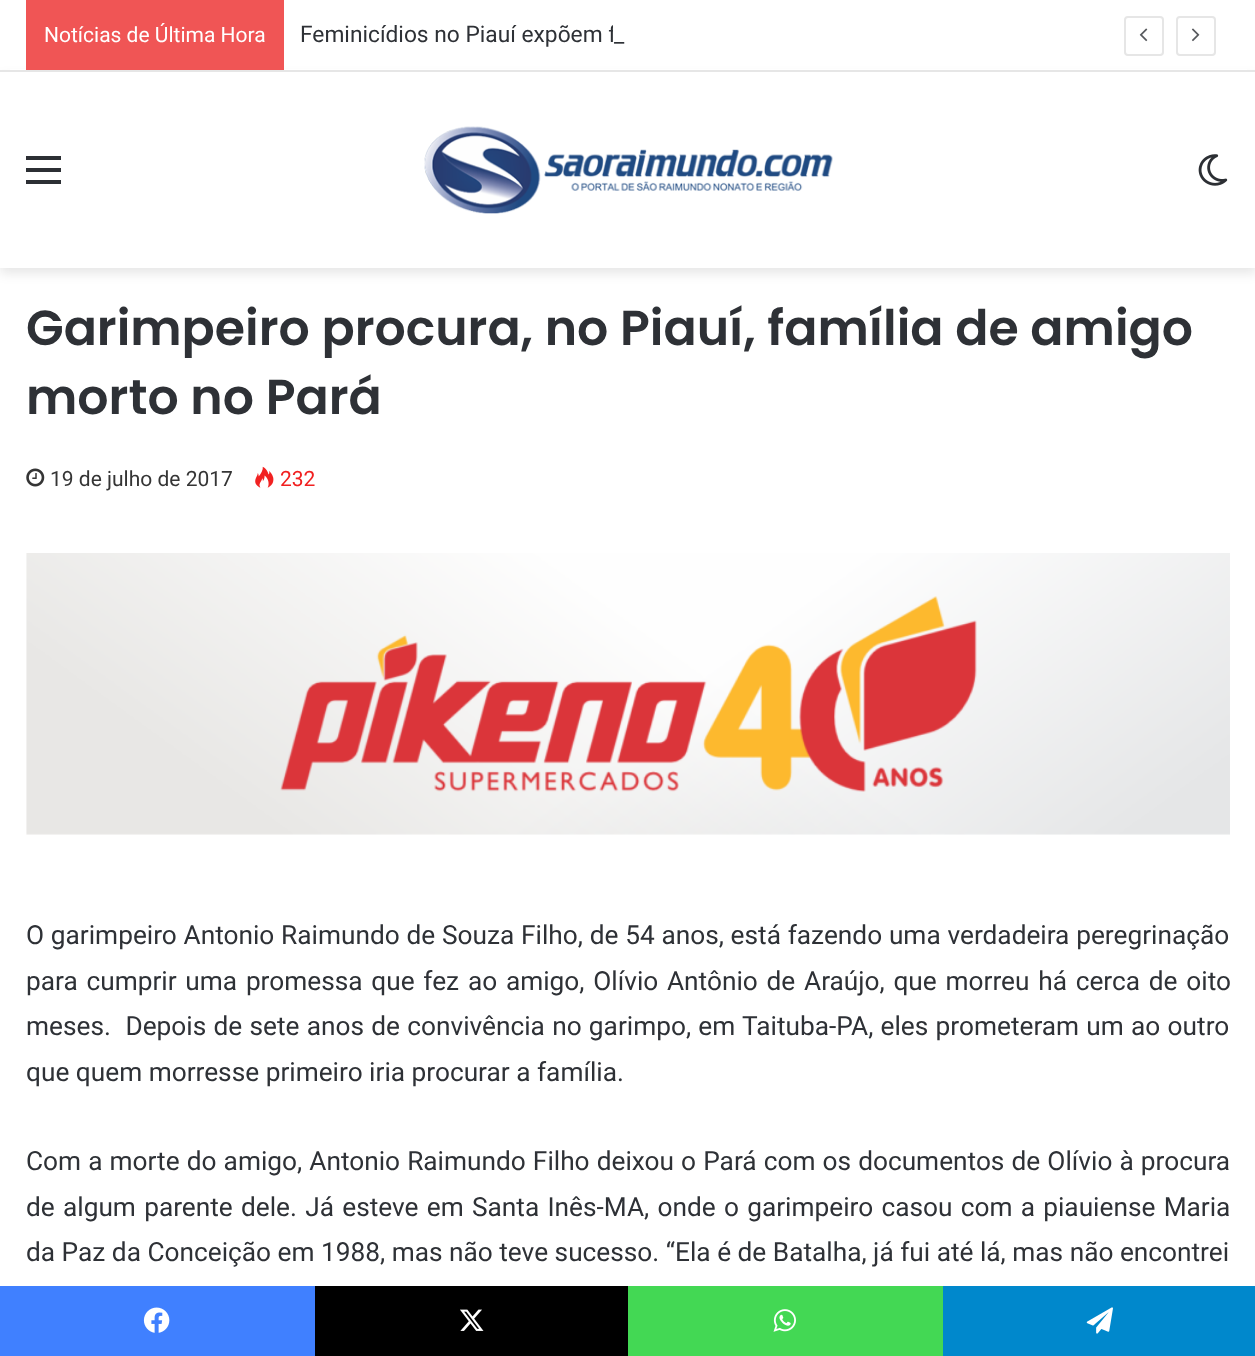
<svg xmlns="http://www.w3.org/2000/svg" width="1255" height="1356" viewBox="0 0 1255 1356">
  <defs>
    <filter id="blur1" x="-50%" y="-200%" width="200%" height="500%"><feGaussianBlur stdDeviation="6"/></filter>
  </defs>
  <rect width="100%" height="100%" fill="#ffffff"/>
  <rect x="0" y="77" width="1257" height="196" fill="#000000" fill-opacity="0.1" filter="url(#blur1)"/>
  <rect x="10" y="69" width="1237" height="1" fill="#ffffff"/>
  <rect x="0" y="70" width="1255" height="2" fill="#e6e6e6"/>
  <rect x="26" y="0" width="258" height="70" fill="#f05555"/>
  <text x="44" y="42" font-family="Roboto" font-size="21" fill="#ffffff">Notícias de Última Hora</text>
  <text x="300" y="42" font-family="Roboto" font-size="22.75" fill="#2e3136">Feminicídios no Piauí expõem f</text>
  <rect x="613" y="24" width="4" height="18" fill="#ffffff"/>
  <text x="614" y="42" font-family="Roboto" font-size="22.75" fill="#2e3136">_</text>
  <rect x="1125" y="17" width="38" height="38" rx="3" fill="none" stroke="#e6e6e6" stroke-width="2"/>
  <image x="1139" y="28" width="9" height="14" href="img1.png"/>
  <rect x="1177" y="17" width="38" height="38" rx="3" fill="none" stroke="#e6e6e6" stroke-width="2"/>
  <image x="1191" y="28" width="9" height="14" href="img2.png"/>
  <rect x="0" y="72" width="1255" height="196" fill="#ffffff"/>
  <rect x="26" y="168" width="35" height="4" fill="#2c2f34"/>
  <rect x="26" y="156" width="35" height="4" fill="#2c2f34"/>
  <rect x="26" y="180" width="35" height="4" fill="#2c2f34"/>
  <image x="424" y="126" width="409" height="88" href="img3.png"/>
  <image x="1198" y="154" width="30" height="32" href="img4.png"/>
  <text x="26" y="345" font-family="Poppins" font-size="49" font-weight="600" fill="#2e3136">Garimpeiro procura, no Piauí, família de amigo</text>
  <text x="26" y="414" font-family="Poppins" font-size="49" font-weight="600" fill="#2e3136">morto no Pará</text>
  <image x="26" y="468" width="19" height="19" href="img5.png"/>
  <text x="50" y="486" font-family="Roboto" font-size="21" fill="#353535">19 de julho de 2017</text>
  <image x="255" y="466" width="19" height="22" href="img6.png"/>
  <text x="280" y="486" font-family="Roboto" font-size="21" fill="#f12020">232</text>
  <image x="26" y="553" width="1204" height="282" href="img7.png"/>
  <text x="26" y="944" word-spacing="0.25" font-family="Roboto" font-size="26.25" fill="#2e3136">O garimpeiro Antonio Raimundo de Souza Filho, de 54 anos, está fazendo uma verdadeira peregrinação</text>
  <text x="26" y="990" word-spacing="2.25" font-family="Roboto" font-size="26.25" fill="#2e3136">para cumprir uma promessa que fez ao amigo, Olívio Antônio de Araújo, que morreu há cerca de oito</text>
  <text x="26" y="1035" word-spacing="0.75" font-family="Roboto" font-size="26.25" fill="#2e3136" xml:space="preserve">meses.  Depois de sete anos de convivência no garimpo, em Taituba-PA, eles prometeram um ao outro</text>
  <text x="26" y="1081" font-family="Roboto" font-size="26.25" fill="#2e3136">que quem morresse primeiro iria procurar a família.</text>
  <text x="26" y="1170" word-spacing="0.6" font-family="Roboto" font-size="26.25" fill="#2e3136">Com a morte do amigo, Antonio Raimundo Filho deixou o Pará com os documentos de Olívio à procura</text>
  <text x="26" y="1216" word-spacing="1.75" font-family="Roboto" font-size="26.25" fill="#2e3136">de algum parente dele. Já esteve em Santa Inês-MA, onde o garimpeiro casou com a piauiense Maria</text>
  <text x="26" y="1261" font-family="Roboto" font-size="26.25" fill="#2e3136">da Paz da Conceição em 1988, mas não teve sucesso. “Ela é de Batalha, já fui até lá, mas não encontrei</text>
  <rect x="0" y="1286" width="315" height="70" fill="#4080ff"/>
  <image x="143" y="1307" width="27" height="26" href="img8.png"/>
  <rect x="315" y="1286" width="313" height="70" fill="#000000"/>
  <image x="460" y="1309" width="24" height="22" href="img9.png"/>
  <rect x="628" y="1286" width="315" height="70" fill="#43d854"/>
  <image x="773" y="1309" width="23" height="23" href="img10.png"/>
  <rect x="943" y="1286" width="312" height="70" fill="#0088cc"/>
  <image x="1086" y="1307" width="27" height="27" href="img11.png"/>
</svg>
